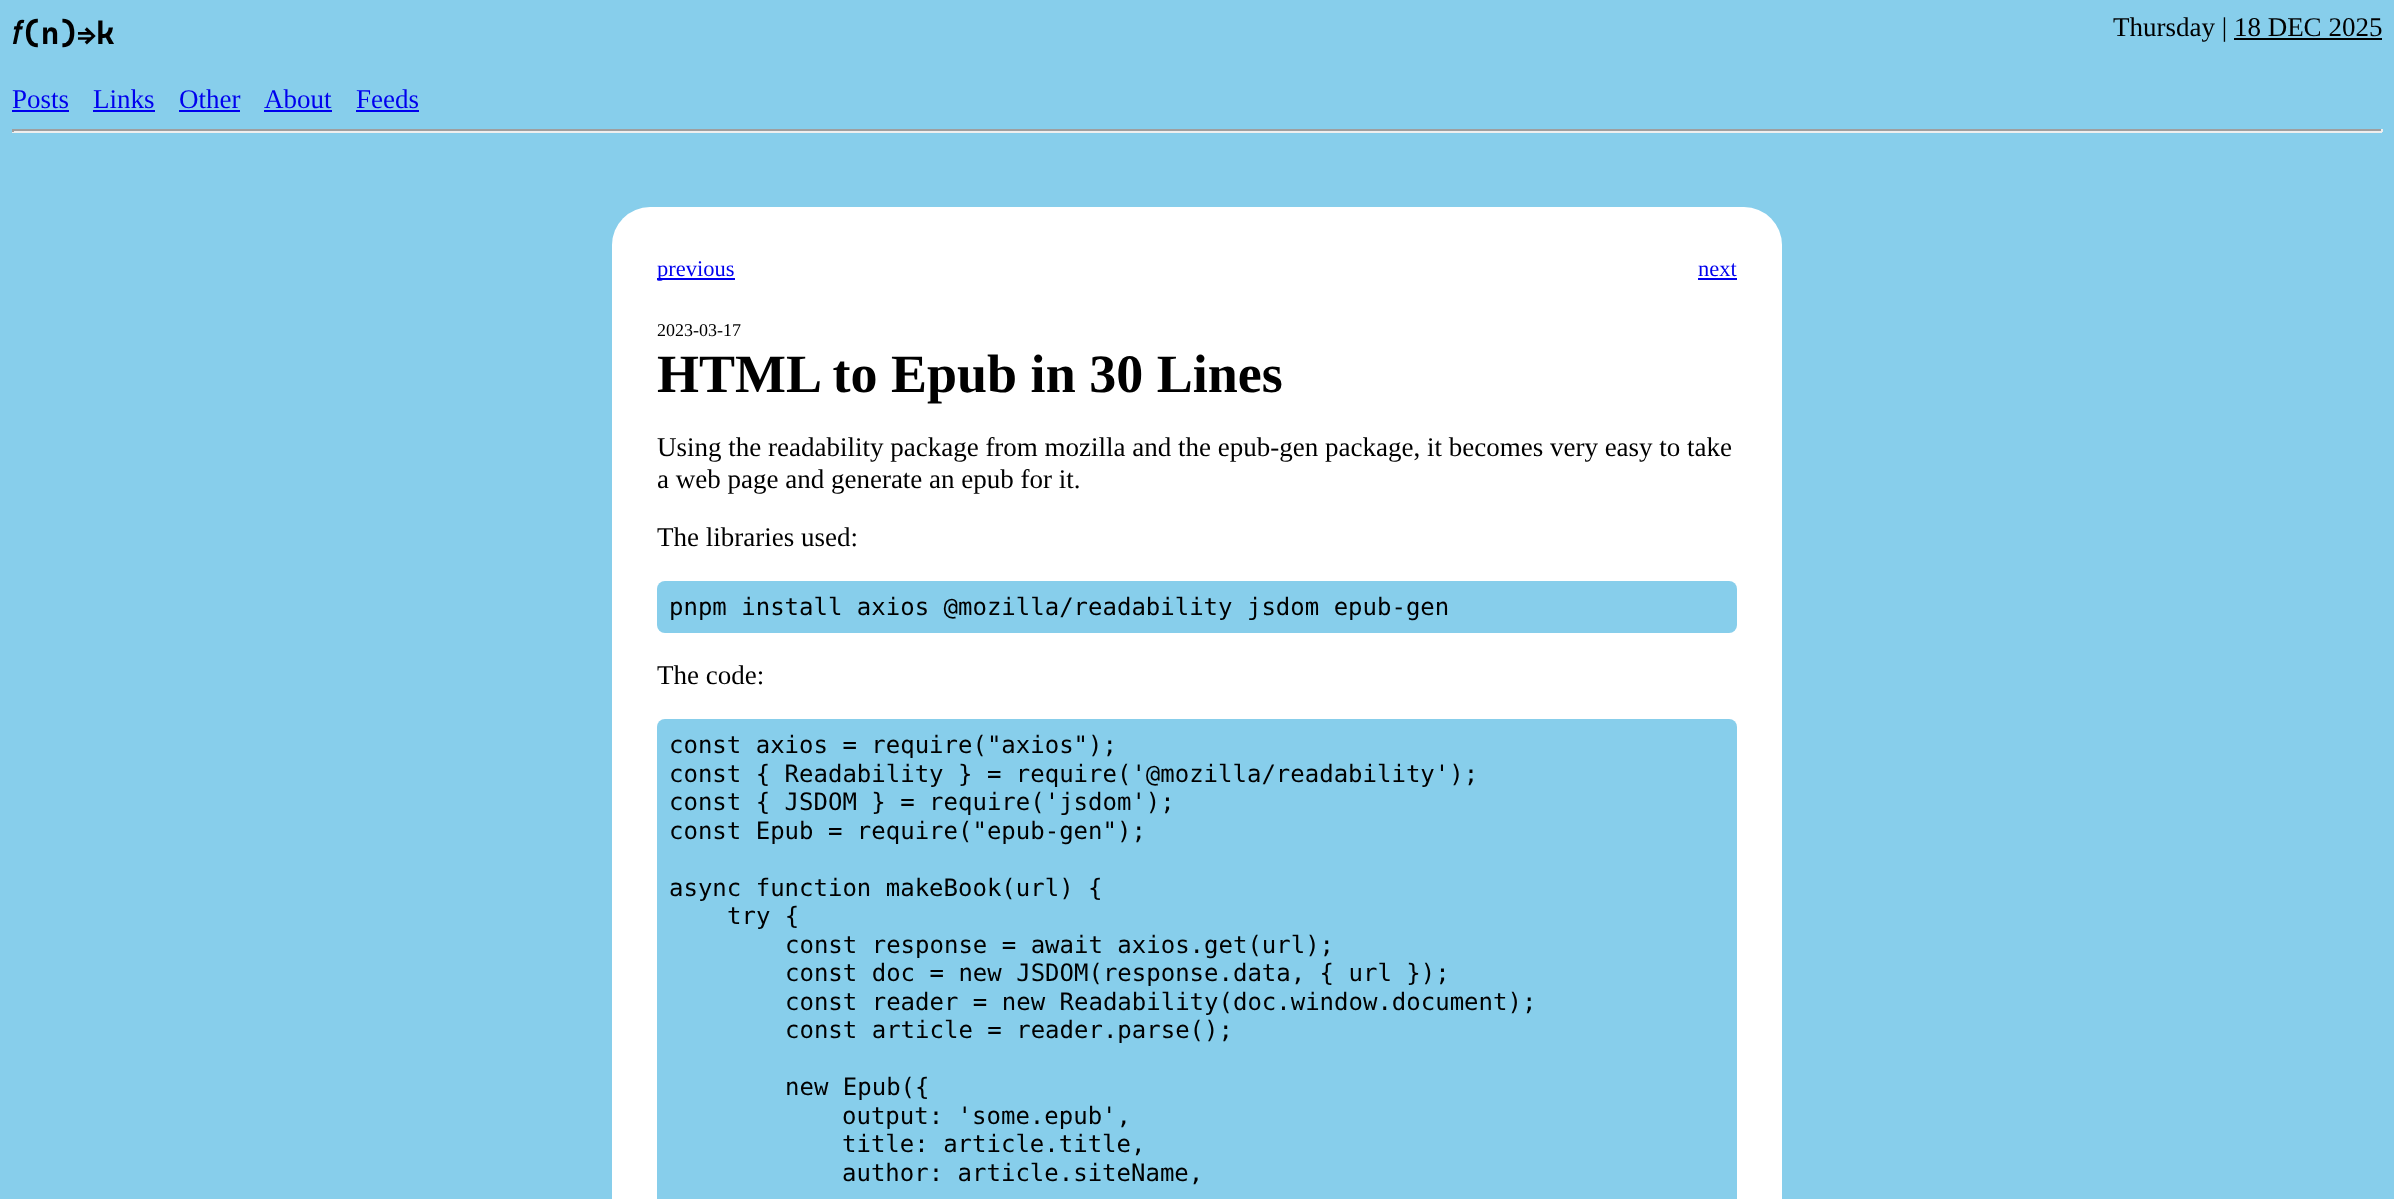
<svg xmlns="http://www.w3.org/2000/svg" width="2394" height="1199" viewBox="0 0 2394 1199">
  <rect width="100%" height="100%" fill="#87ceeb"/>
  <text x="12" y="44" font-family="FreeSans" font-size="32" font-weight="bold" fill="#000000">𝑓</text>
  <text x="22" y="44" font-family="Cascadia Code" font-size="32" font-weight="bold" fill="#000000">(n)</text>
  <text x="77" y="44" font-family="Source Code Pro" font-size="32" font-weight="bold" fill="#000000">⇒</text>
  <text x="96" y="44" font-family="Cascadia Code" font-size="32" font-weight="bold" fill="#000000">k</text>
  <text x="2113" y="36" font-family="Liberation Serif" font-size="27" fill="#000000">Thursday | 18 DEC 2025</text>
  <rect x="2234" y="38" width="148" height="2" fill="#000000"/>
  <text x="12" y="108" font-family="Liberation Serif" font-size="27" fill="#0000ee">Posts</text>
  <rect x="12" y="110" width="57" height="2" fill="#0000ee"/>
  <text x="93" y="108" font-family="Liberation Serif" font-size="27" fill="#0000ee">Links</text>
  <rect x="93" y="110" width="62" height="2" fill="#0000ee"/>
  <text x="179" y="108" font-family="Liberation Serif" font-size="27" fill="#0000ee">Other</text>
  <rect x="179" y="110" width="61" height="2" fill="#0000ee"/>
  <text x="264" y="108" font-family="Liberation Serif" font-size="27" fill="#0000ee">About</text>
  <rect x="264" y="110" width="68" height="2" fill="#0000ee"/>
  <text x="356" y="108" font-family="Liberation Serif" font-size="27" fill="#0000ee">Feeds</text>
  <rect x="356" y="110" width="63" height="2" fill="#0000ee"/>
  <rect x="12" y="129" width="2370" height="2" fill="#9f9f9f"/>
  <rect x="2381" y="129" width="2" height="3" fill="#eeeeee"/>
  <rect x="12" y="131" width="2370" height="2" fill="#eeeeee"/>
  <rect x="12" y="129" width="2" height="3" fill="#9f9f9f"/>
  <rect x="612" y="207" width="1170" height="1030" rx="38" fill="#ffffff"/>
  <rect x="657" y="278" width="78" height="2" fill="#0000ee"/>
  <text x="657" y="276" font-family="Liberation Serif" font-size="22.5" fill="#0000ee">previous</text>
  <text x="1698" y="276" font-family="Liberation Serif" font-size="22.5" fill="#0000ee">next</text>
  <rect x="1698" y="278" width="39" height="2" fill="#0000ee"/>
  <text x="657" y="336" font-family="Liberation Serif" font-size="18" fill="#000000">2023-03-17</text>
  <text x="657" y="392" font-family="Liberation Serif" font-size="54" font-weight="bold" fill="#000000">HTML to Epub in 30 Lines</text>
  <text x="657" y="456" font-family="Liberation Serif" font-size="27" fill="#000000">Using the readability package from mozilla and the epub-gen package, it becomes very easy to take</text>
  <text x="657" y="488" font-family="Liberation Serif" font-size="27" fill="#000000">a web page and generate an epub for it.</text>
  <text x="657" y="546" font-family="Liberation Serif" font-size="27" fill="#000000">The libraries used:</text>
  <rect x="657" y="581" width="1080" height="52" rx="8" fill="#87ceeb"/>
  <text x="669" y="615" font-family="DejaVu Sans Mono" font-size="24" fill="#000000">pnpm install axios @mozilla/readability jsdom epub-gen</text>
  <text x="657" y="684" font-family="Liberation Serif" font-size="27" fill="#000000">The code:</text>
  <rect x="657" y="719" width="1080" height="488" rx="8" fill="#87ceeb"/>
  <text x="669" y="753" font-family="DejaVu Sans Mono" font-size="24" fill="#000000">const axios = require("axios");</text>
  <text x="669" y="782" font-family="DejaVu Sans Mono" font-size="24" fill="#000000">const { Readability } = require('@mozilla/readability');</text>
  <text x="669" y="810" font-family="DejaVu Sans Mono" font-size="24" fill="#000000">const { JSDOM } = require('jsdom');</text>
  <text x="669" y="839" font-family="DejaVu Sans Mono" font-size="24" fill="#000000">const Epub = require("epub-gen");</text>
  <text x="669" y="896" font-family="DejaVu Sans Mono" font-size="24" fill="#000000">async function makeBook(url) {</text>
  <text x="727" y="924" font-family="DejaVu Sans Mono" font-size="24" fill="#000000">try {</text>
  <text x="785" y="953" font-family="DejaVu Sans Mono" font-size="24" fill="#000000">const response = await axios.get(url);</text>
  <text x="785" y="981" font-family="DejaVu Sans Mono" font-size="24" fill="#000000">const doc = new JSDOM(response.data, { url });</text>
  <text x="785" y="1010" font-family="DejaVu Sans Mono" font-size="24" fill="#000000">const reader = new Readability(doc.window.document);</text>
  <text x="785" y="1038" font-family="DejaVu Sans Mono" font-size="24" fill="#000000">const article = reader.parse();</text>
  <text x="785" y="1095" font-family="DejaVu Sans Mono" font-size="24" fill="#000000">new Epub({</text>
  <text x="842" y="1124" font-family="DejaVu Sans Mono" font-size="24" fill="#000000">output: 'some.epub',</text>
  <text x="842" y="1152" font-family="DejaVu Sans Mono" font-size="24" fill="#000000">title: article.title,</text>
  <text x="842" y="1181" font-family="DejaVu Sans Mono" font-size="24" fill="#000000">author: article.siteName,</text>
</svg>
